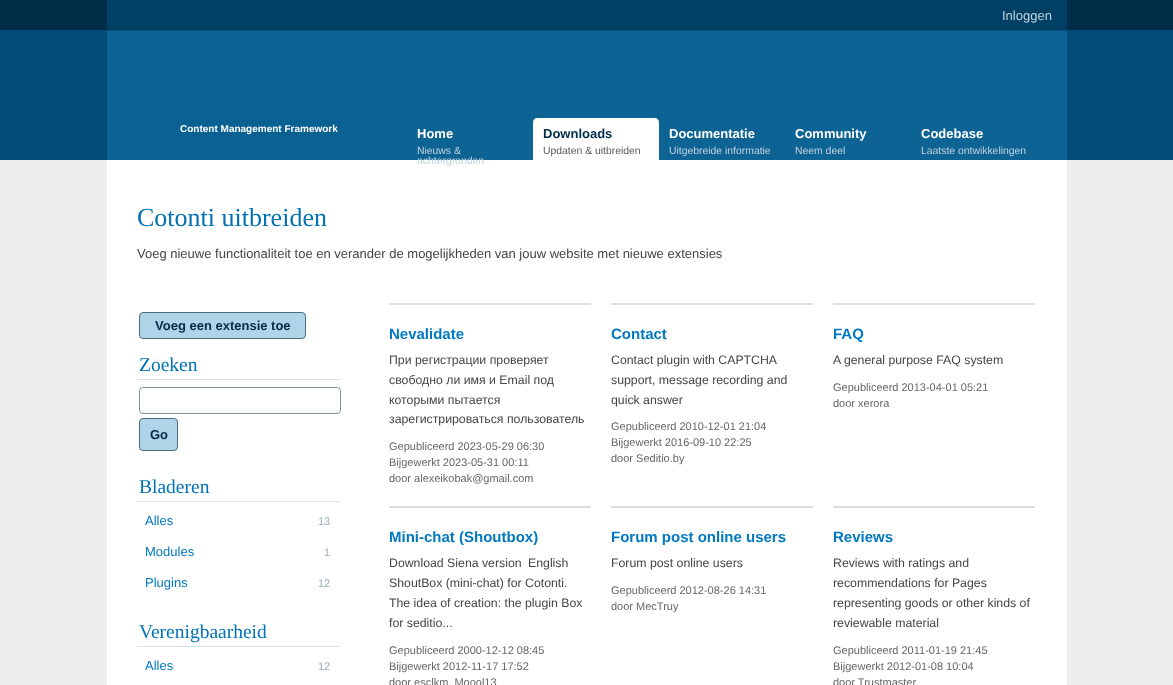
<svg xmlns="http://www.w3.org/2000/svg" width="1173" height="685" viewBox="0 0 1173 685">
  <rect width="100%" height="100%" fill="#012d48"/>
  <rect x="107" y="0" width="960" height="30" fill="#013f65"/>
  <text x="1002" y="20" font-family="Liberation Sans" font-size="13" fill="#c0d2dd">Inloggen</text>
  <rect x="0" y="30" width="1173" height="130" fill="#024c79"/>
  <rect x="107" y="31" width="960" height="129" fill="#0e6395"/>
  <rect x="176" y="120" width="165" height="17" fill="#096093"/>
  <text x="180" y="132" font-family="Liberation Sans" font-size="10" font-weight="bold" fill="#ffffff">Content Management Framework</text>
  <text x="417" y="138" font-family="Liberation Sans" font-size="13" font-weight="bold" fill="#ffffff">Home</text>
  <text x="417" y="154" font-family="Liberation Sans" font-size="10.4" fill="#c0d2dd">Nieuws &amp;</text>
  <rect x="0" y="160" width="1173" height="525" fill="#eeeeee"/>
  <rect x="107" y="160" width="960" height="525" fill="#ffffff"/>
  <text x="417" y="164" font-family="Liberation Sans" font-size="10.4" fill="#c0d2dd">achtergronden</text>
  <path d="M537 118H655C657 118 659 120 659 122V162H533V122C533 120 535 118 537 118Z" fill="#ffffff"/>
  <text x="543" y="138" font-family="Liberation Sans" font-size="13" font-weight="bold" fill="#012d48">Downloads</text>
  <text x="543" y="154" font-family="Liberation Sans" font-size="10.4" fill="#585858">Updaten &amp; uitbreiden</text>
  <text x="669" y="138" font-family="Liberation Sans" font-size="13" font-weight="bold" fill="#ffffff">Documentatie</text>
  <text x="669" y="154" font-family="Liberation Sans" font-size="10.4" fill="#c0d2dd">Uitgebreide informatie</text>
  <text x="795" y="138" font-family="Liberation Sans" font-size="13" font-weight="bold" fill="#ffffff">Community</text>
  <text x="795" y="154" font-family="Liberation Sans" font-size="10.4" fill="#c0d2dd">Neem deel</text>
  <text x="921" y="138" font-family="Liberation Sans" font-size="13" font-weight="bold" fill="#ffffff">Codebase</text>
  <text x="921" y="154" font-family="Liberation Sans" font-size="10.4" fill="#c0d2dd">Laatste ontwikkelingen</text>
  <text x="137" y="226" font-family="Liberation Serif" font-size="26" fill="#0072b6">Cotonti uitbreiden</text>
  <text x="137" y="258" font-family="Liberation Sans" font-size="13" fill="#444444">Voeg nieuwe functionaliteit toe en verander de mogelijkheden van jouw website met nieuwe extensies</text>
  <rect x="139.5" y="312.5" width="166" height="26" rx="3.5" fill="#b1d3e7" stroke="#4c6e83"/>
  <text x="155" y="330" font-family="Liberation Sans" font-size="13" font-weight="bold" fill="#012d48">Voeg een extensie toe</text>
  <rect x="137" y="379" width="202" height="1" fill="#d8dfe7"/>
  <text x="139" y="371" font-family="Liberation Serif" font-size="19.5" fill="#0072b6">Zoeken</text>
  <rect x="139.5" y="387.5" width="201" height="26" rx="3.5" fill="none" stroke="#7f95a3"/>
  <rect x="139.5" y="418.5" width="38" height="32" rx="3.5" fill="#b1d3e7" stroke="#4c6e83"/>
  <text x="150" y="439" font-family="Liberation Sans" font-size="13" font-weight="bold" fill="#012d48">Go</text>
  <rect x="137" y="501" width="202" height="1" fill="#d8dfe7"/>
  <text x="139" y="493" font-family="Liberation Serif" font-size="19.5" fill="#0072b6">Bladeren</text>
  <text x="145" y="525" font-family="Liberation Sans" font-size="13" fill="#0079c1">Alles</text>
  <text x="318" y="525" font-family="Liberation Sans" font-size="11" fill="#99aabb">13</text>
  <text x="145" y="556" font-family="Liberation Sans" font-size="13" fill="#0079c1">Modules</text>
  <text x="324" y="556" font-family="Liberation Sans" font-size="11" fill="#99aabb">1</text>
  <text x="145" y="587" font-family="Liberation Sans" font-size="13" fill="#0079c1">Plugins</text>
  <text x="318" y="587" font-family="Liberation Sans" font-size="11" fill="#99aabb">12</text>
  <rect x="137" y="646" width="202" height="1" fill="#d8dfe7"/>
  <text x="139" y="638" font-family="Liberation Serif" font-size="19.5" fill="#0072b6">Verenigbaarheid</text>
  <text x="145" y="670" font-family="Liberation Sans" font-size="13" fill="#0079c1">Alles</text>
  <text x="318" y="670" font-family="Liberation Sans" font-size="11" fill="#99aabb">12</text>
  <rect x="389" y="303" width="202" height="2" fill="#dddddd"/>
  <text x="389" y="339" font-family="Liberation Sans" font-size="15" font-weight="bold" fill="#0079c1">Nevalidate</text>
  <text x="389" y="364" font-family="Liberation Sans" font-size="12.3" fill="#444444">При регистрации проверяет</text>
  <text x="389" y="384" font-family="Liberation Sans" font-size="12.3" fill="#444444">свободно ли имя и Email под</text>
  <text x="389" y="404" font-family="Liberation Sans" font-size="12.3" fill="#444444">которыми пытается</text>
  <text x="389" y="423" font-family="Liberation Sans" font-size="12.3" fill="#444444">зарегистрироваться пользователь</text>
  <text x="389" y="450" font-family="Liberation Sans" font-size="11" fill="#666666">Gepubliceerd 2023-05-29 06:30</text>
  <text x="389" y="466" font-family="Liberation Sans" font-size="11" fill="#666666">Bijgewerkt 2023-05-31 00:11</text>
  <text x="389" y="482" font-family="Liberation Sans" font-size="11" fill="#666666">door alexeikobak@gmail.com</text>
  <rect x="611" y="303" width="202" height="2" fill="#dddddd"/>
  <text x="611" y="339" font-family="Liberation Sans" font-size="15" font-weight="bold" fill="#0079c1">Contact</text>
  <text x="611" y="364" font-family="Liberation Sans" font-size="12.3" fill="#444444">Contact plugin with CAPTCHA</text>
  <text x="611" y="384" font-family="Liberation Sans" font-size="12.3" fill="#444444">support, message recording and</text>
  <text x="611" y="404" font-family="Liberation Sans" font-size="12.3" fill="#444444">quick answer</text>
  <text x="611" y="430" font-family="Liberation Sans" font-size="11" fill="#666666">Gepubliceerd 2010-12-01 21:04</text>
  <text x="611" y="446" font-family="Liberation Sans" font-size="11" fill="#666666">Bijgewerkt 2016-09-10 22:25</text>
  <text x="611" y="462" font-family="Liberation Sans" font-size="11" fill="#666666">door Seditio.by</text>
  <rect x="833" y="303" width="202" height="2" fill="#dddddd"/>
  <text x="833" y="339" font-family="Liberation Sans" font-size="15" font-weight="bold" fill="#0079c1">FAQ</text>
  <text x="833" y="364" font-family="Liberation Sans" font-size="12.3" fill="#444444">A general purpose FAQ system</text>
  <text x="833" y="391" font-family="Liberation Sans" font-size="11" fill="#666666">Gepubliceerd 2013-04-01 05:21</text>
  <text x="833" y="407" font-family="Liberation Sans" font-size="11" fill="#666666">door xerora</text>
  <rect x="389" y="506" width="202" height="2" fill="#dddddd"/>
  <text x="389" y="542" font-family="Liberation Sans" font-size="15" font-weight="bold" fill="#0079c1">Mini-chat (Shoutbox)</text>
  <text x="389" y="567" font-family="Liberation Sans" font-size="12.3" fill="#444444">Download Siena version</text>
  <text x="528" y="567" font-family="Liberation Sans" font-size="12.3" fill="#444444">English</text>
  <text x="389" y="587" font-family="Liberation Sans" font-size="12.3" fill="#444444">ShoutBox (mini-chat) for Cotonti.</text>
  <text x="389" y="607" font-family="Liberation Sans" font-size="12.3" fill="#444444">The idea of creation: the plugin Box</text>
  <text x="389" y="627" font-family="Liberation Sans" font-size="12.3" fill="#444444">for seditio...</text>
  <text x="389" y="654" font-family="Liberation Sans" font-size="11" fill="#666666">Gepubliceerd 2000-12-12 08:45</text>
  <text x="389" y="670" font-family="Liberation Sans" font-size="11" fill="#666666">Bijgewerkt 2012-11-17 17:52</text>
  <text x="389" y="686" font-family="Liberation Sans" font-size="11" fill="#666666">door esclkm, Moool13</text>
  <rect x="611" y="506" width="202" height="2" fill="#dddddd"/>
  <text x="611" y="542" font-family="Liberation Sans" font-size="15" font-weight="bold" fill="#0079c1">Forum post online users</text>
  <text x="611" y="567" font-family="Liberation Sans" font-size="12.3" fill="#444444">Forum post online users</text>
  <text x="611" y="594" font-family="Liberation Sans" font-size="11" fill="#666666">Gepubliceerd 2012-08-26 14:31</text>
  <text x="611" y="610" font-family="Liberation Sans" font-size="11" fill="#666666">door MecTruy</text>
  <rect x="833" y="506" width="202" height="2" fill="#dddddd"/>
  <text x="833" y="542" font-family="Liberation Sans" font-size="15" font-weight="bold" fill="#0079c1">Reviews</text>
  <text x="833" y="567" font-family="Liberation Sans" font-size="12.3" fill="#444444">Reviews with ratings and</text>
  <text x="833" y="587" font-family="Liberation Sans" font-size="12.3" fill="#444444">recommendations for Pages</text>
  <text x="833" y="607" font-family="Liberation Sans" font-size="12.3" fill="#444444">representing goods or other kinds of</text>
  <text x="833" y="627" font-family="Liberation Sans" font-size="12.3" fill="#444444">reviewable material</text>
  <text x="833" y="654" font-family="Liberation Sans" font-size="11" fill="#666666">Gepubliceerd 2011-01-19 21:45</text>
  <text x="833" y="670" font-family="Liberation Sans" font-size="11" fill="#666666">Bijgewerkt 2012-01-08 10:04</text>
  <text x="833" y="686" font-family="Liberation Sans" font-size="11" fill="#666666">door Trustmaster</text>
</svg>
